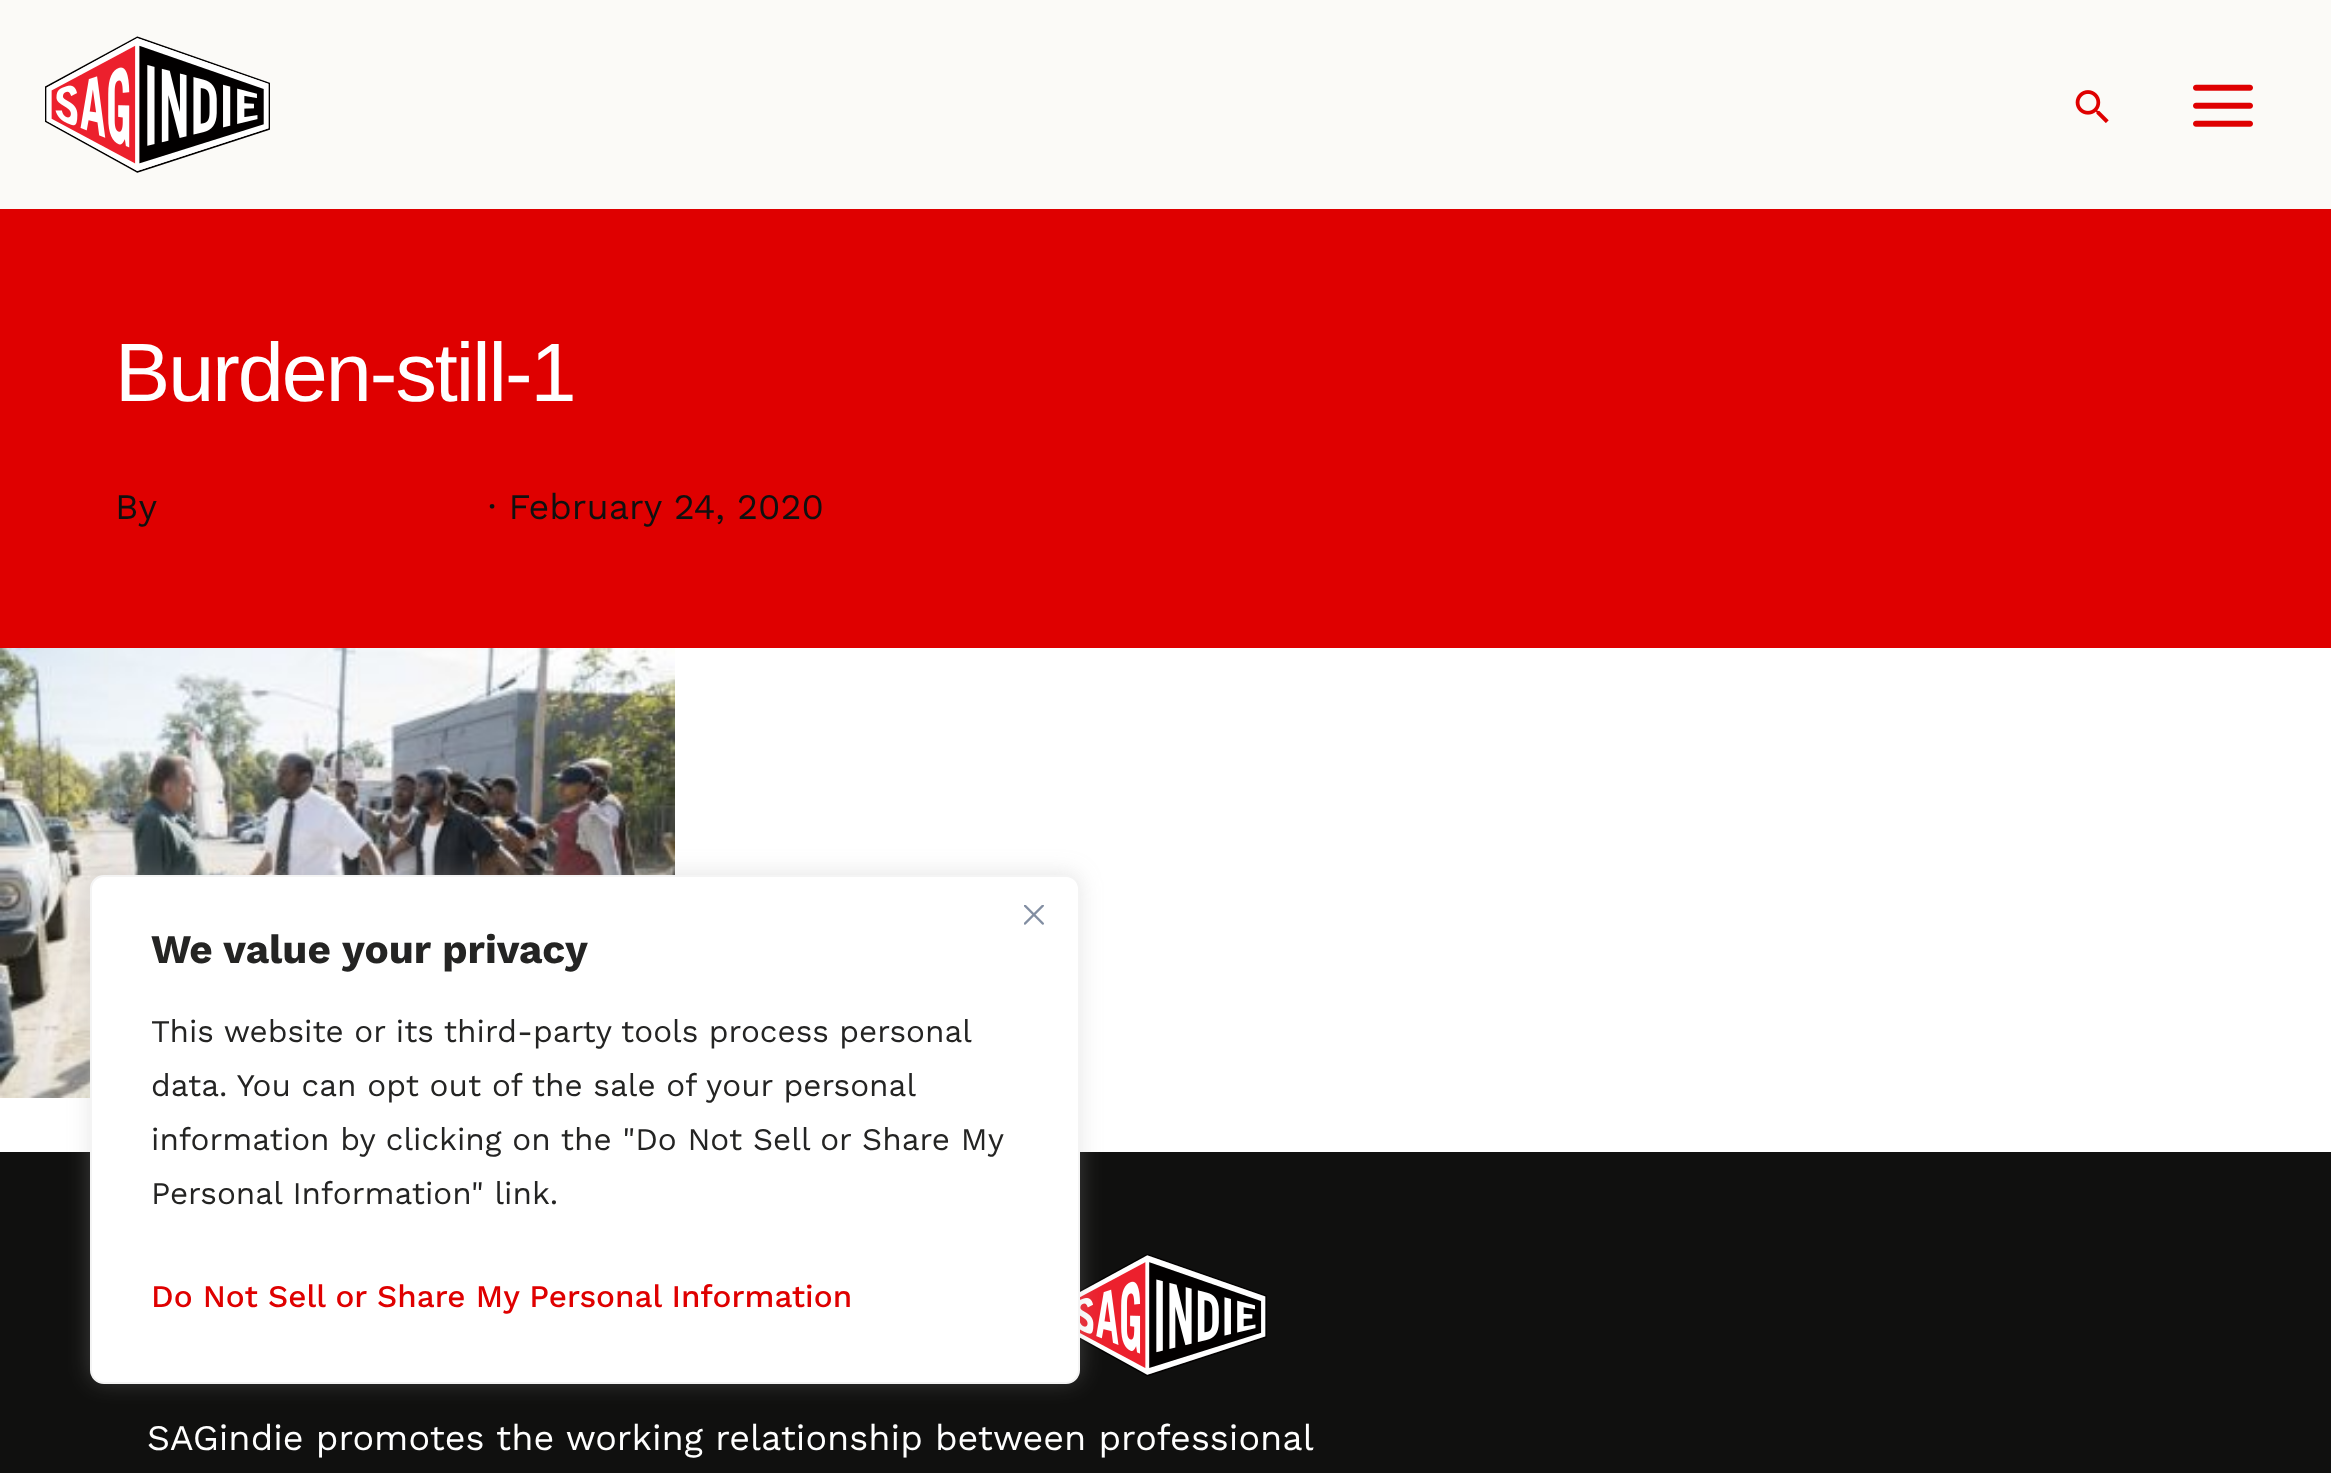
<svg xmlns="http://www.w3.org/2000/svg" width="2331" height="1473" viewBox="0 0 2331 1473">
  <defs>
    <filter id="blur1" x="-50%" y="-200%" width="200%" height="500%"><feGaussianBlur stdDeviation="11"/></filter>
  </defs>
  <rect width="100%" height="100%" fill="#ffffff"/>
  <rect x="0" y="0" width="2331" height="209" fill="#fbfaf7"/>
  <image x="45" y="36" width="225" height="137" href="img1.png"/>
  <image x="2075" y="90" width="34" height="33" href="img2.png"/>
  <image x="2193" y="84" width="60" height="43" href="img3.png"/>
  <rect x="0" y="209" width="2331" height="439" fill="#df0000"/>
  <text x="115" y="401" font-family="Liberation Sans" font-size="82.75" letter-spacing="-2" fill="#ffffff">Burden-still-1</text>
  <text x="115" y="519" font-family="Work Sans" font-size="36" fill="#10100f">By</text>
  <text x="488" y="519" font-family="Work Sans" font-size="36" fill="#10100f">· February 24, 2020</text>
  <image x="0" y="648" width="675" height="450" href="img4.png"/>
  <rect x="0" y="1152" width="2331" height="321" fill="#10100f"/>
  <image x="1080" y="1254" width="187" height="123" href="img5.png"/>
  <text x="147" y="1450" font-family="Work Sans" font-size="36" fill="#ffffff">SAGindie promotes the working relationship between professional</text>
  <rect x="90" y="873" width="990" height="509" rx="14" fill="#acabab" fill-opacity="0.3" filter="url(#blur1)"/>
  <rect x="91" y="876" width="988" height="507" rx="13" fill="#ffffff" stroke="#f4f4f4" stroke-width="2"/>
  <image x="1024" y="905" width="20" height="20" href="img6.png"/>
  <text x="151" y="963" font-family="Work Sans" font-size="40.5" font-weight="bold" fill="#242423">We value your privacy</text>
  <text x="151" y="1042" word-spacing="-0.25" font-family="Work Sans" font-size="31.5" fill="#242423">This website or its third-party tools process personal</text>
  <text x="151" y="1096" font-family="Work Sans" font-size="31.5" fill="#242423">data. You can opt out of the sale of your personal</text>
  <text x="151" y="1150" font-family="Work Sans" font-size="31.5" fill="#242423">information by clicking on the "Do Not Sell or Share My</text>
  <text x="151" y="1204" font-family="Work Sans" font-size="31.5" fill="#242423">Personal Information" link.</text>
  <text x="151" y="1307" font-family="Work Sans" font-size="31.5" font-weight="500" fill="#df0000">Do Not Sell or Share My Personal Information</text>
</svg>
